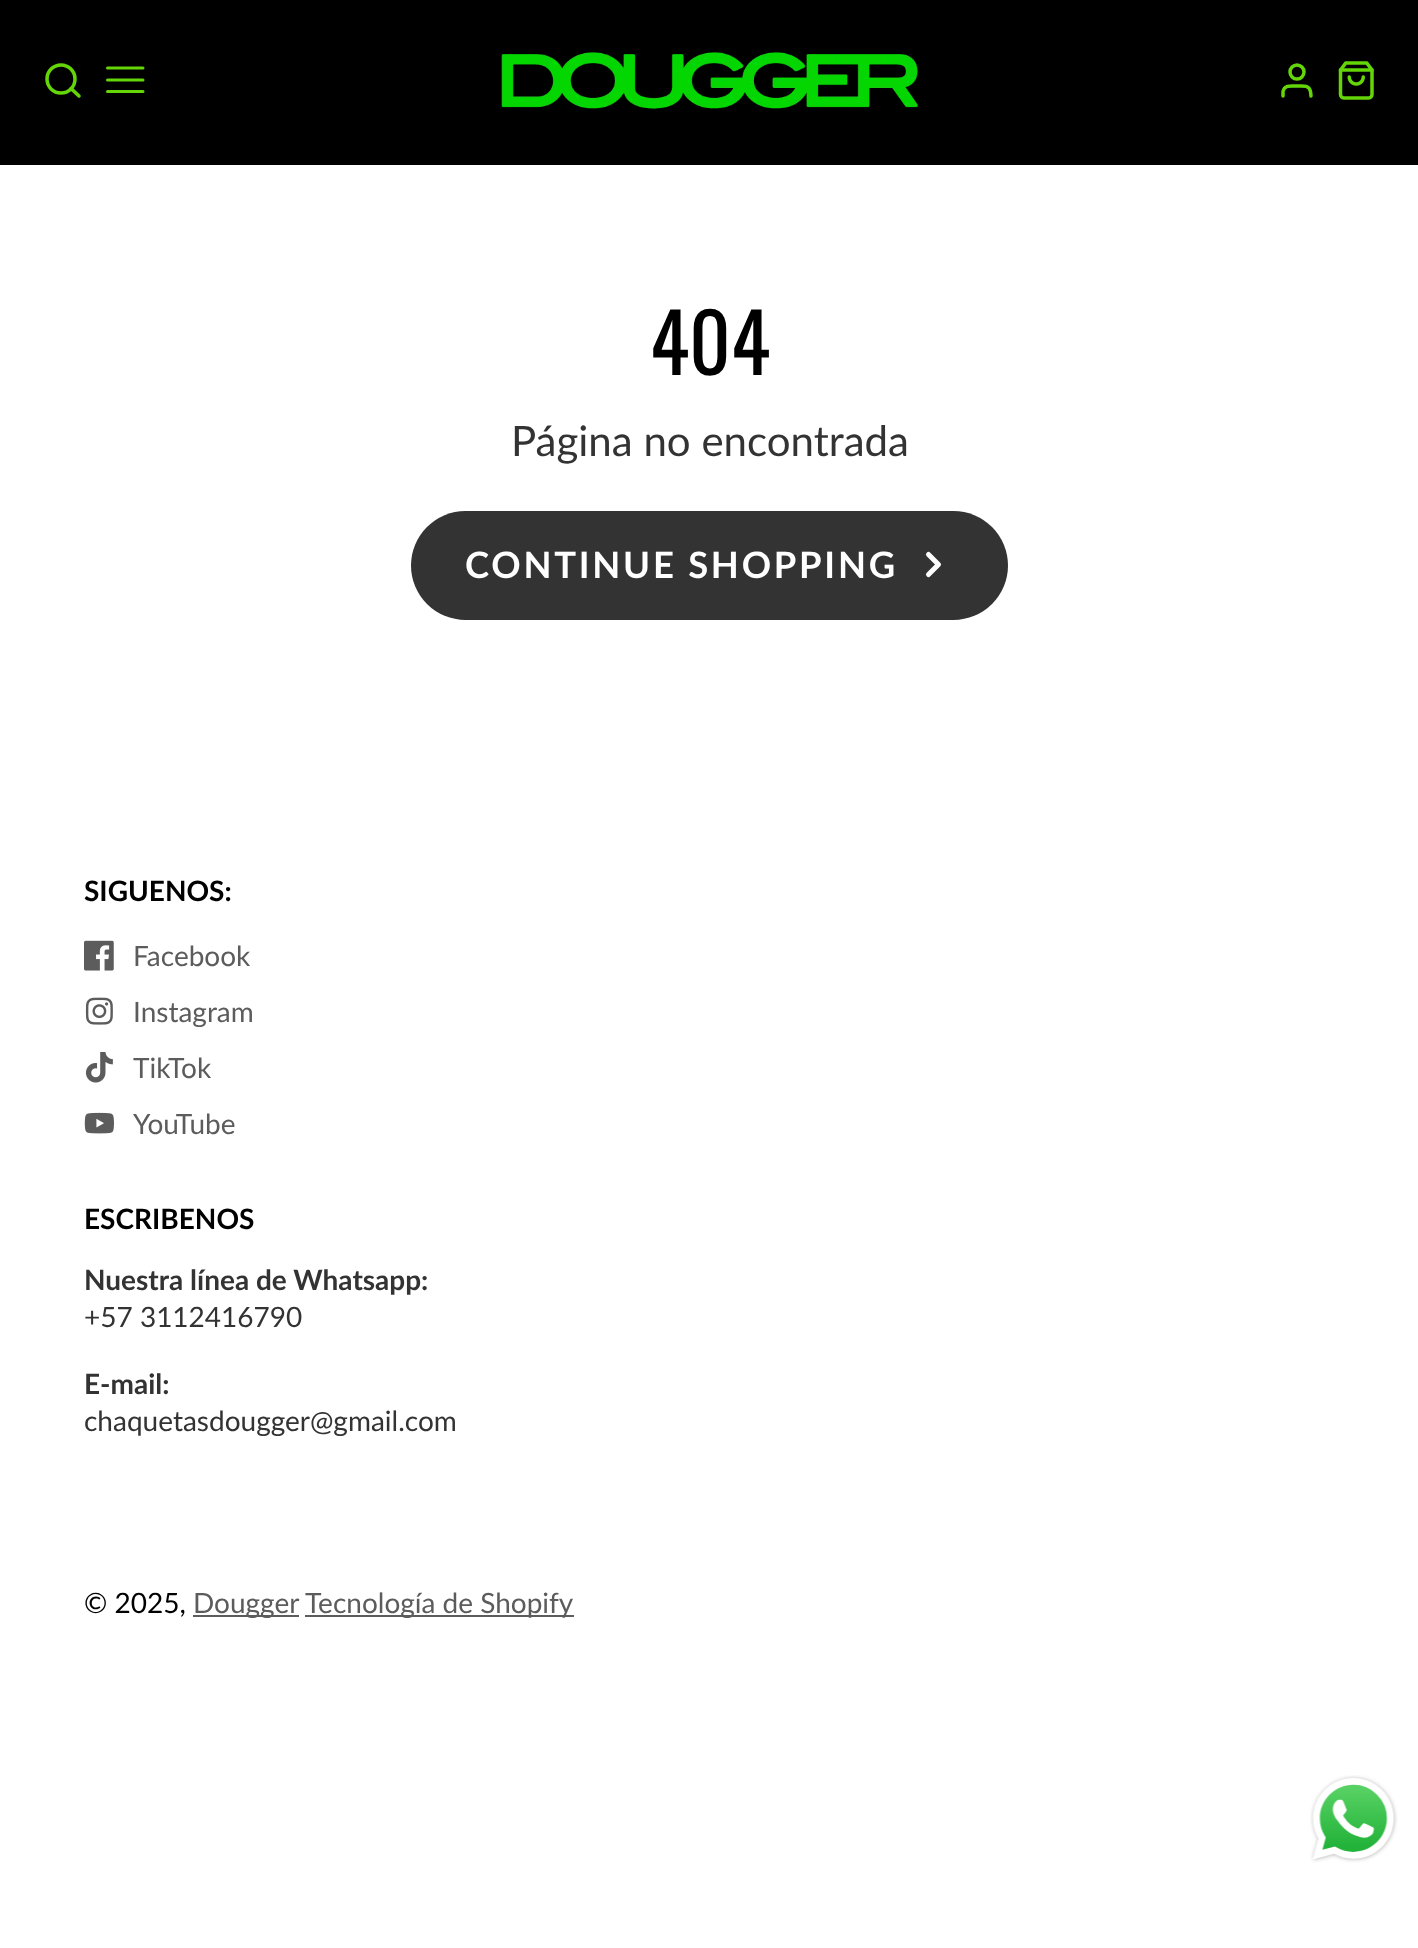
<svg xmlns="http://www.w3.org/2000/svg" width="1418" height="1948" viewBox="0 0 1418 1948">
  <rect width="100%" height="100%" fill="#ffffff"/>
  <rect x="0" y="0" width="1418" height="165" fill="#000000"/>
  <circle cx="61" cy="79" r="14" fill="none" stroke="#64d607" stroke-width="3.5"/>
  <path d="M79 96L71 88.5" fill="none" stroke="#64d607" stroke-width="3.5" stroke-linecap="round" stroke-linejoin="round"/>
  <path d="M107.5 80H143M107.5 68H143M107.5 91.5H143" fill="none" stroke="#64d607" stroke-width="3" stroke-linecap="round" stroke-linejoin="round"/>
  <image x="501" y="52" width="417" height="57" href="img1.png"/>
  <circle cx="1297" cy="72" r="7" fill="none" stroke="#64d607" stroke-width="3.5"/>
  <path d="M1311 96L1310.5 91.5C1309 84.5 1302 86 1297 86C1291.5 86 1284.5 84.5 1283 91.5V96" fill="none" stroke="#64d607" stroke-width="3.5" stroke-linecap="round" stroke-linejoin="round"/>
  <image x="1338" y="61" width="36" height="39" href="img2.png"/>
  <text x="650" y="375" font-family="Oswald" font-size="81" fill="#000000">404</text>
  <text x="511" y="456" font-family="Lato" font-size="42" fill="#333333">Página no encontrada</text>
  <rect x="411" y="511" width="597" height="109" rx="54.5" fill="#333333"/>
  <text x="465" y="578" font-family="Lato" font-size="36.4" font-weight="bold" letter-spacing="2.75" fill="#ffffff">CONTINUE SHOPPING</text>
  <path d="M928.5 574.5L938.5 564.5L928.5 554.5" fill="none" stroke="#ffffff" stroke-width="5" stroke-linecap="round" stroke-linejoin="round"/>
  <text x="84" y="901" font-family="Lato" font-size="28" font-weight="bold" fill="#000000">SIGUENOS:</text>
  <image x="84" y="940" width="30" height="31" href="img3.png"/>
  <text x="133" y="966" font-family="Lato" font-size="28" fill="#5c5c5c">Facebook</text>
  <image x="85" y="997" width="28" height="28" href="img4.png"/>
  <text x="133" y="1022" font-family="Lato" font-size="28" fill="#5c5c5c">Instagram</text>
  <image x="85" y="1052" width="28" height="31" href="img5.png"/>
  <text x="133" y="1078" font-family="Lato" font-size="28" fill="#5c5c5c">TikTok</text>
  <image x="84" y="1112" width="30" height="22" href="img6.png"/>
  <text x="133" y="1134" font-family="Lato" font-size="28" fill="#5c5c5c">YouTube</text>
  <text x="84" y="1229" font-family="Lato" font-size="28" font-weight="bold" fill="#000000">ESCRIBENOS</text>
  <text x="84" y="1290" font-family="Lato" font-size="28" font-weight="bold" fill="#333333">Nuestra línea de Whatsapp:</text>
  <text x="84" y="1327" font-family="Lato" font-size="28" fill="#333333">+57 3112416790</text>
  <text x="84" y="1394" font-family="Lato" font-size="28" font-weight="bold" fill="#333333">E-mail:</text>
  <text x="84" y="1431" font-family="Lato" font-size="28" fill="#333333">chaquetasdougger@gmail.com</text>
  <text x="84" y="1613" font-family="Lato" font-size="28" fill="#000000">© 2025,</text>
  <rect x="193" y="1615" width="106" height="2" fill="#5c5c5c"/>
  <text x="193" y="1613" font-family="Lato" font-size="28" fill="#5c5c5c">Dougger</text>
  <rect x="305" y="1615" width="269" height="2" fill="#5c5c5c"/>
  <text x="305" y="1613" font-family="Lato" font-size="28" fill="#5c5c5c">Tecnología de Shopify</text>
  <image x="1310" y="1775" width="88" height="88" href="img7.png"/>
</svg>
